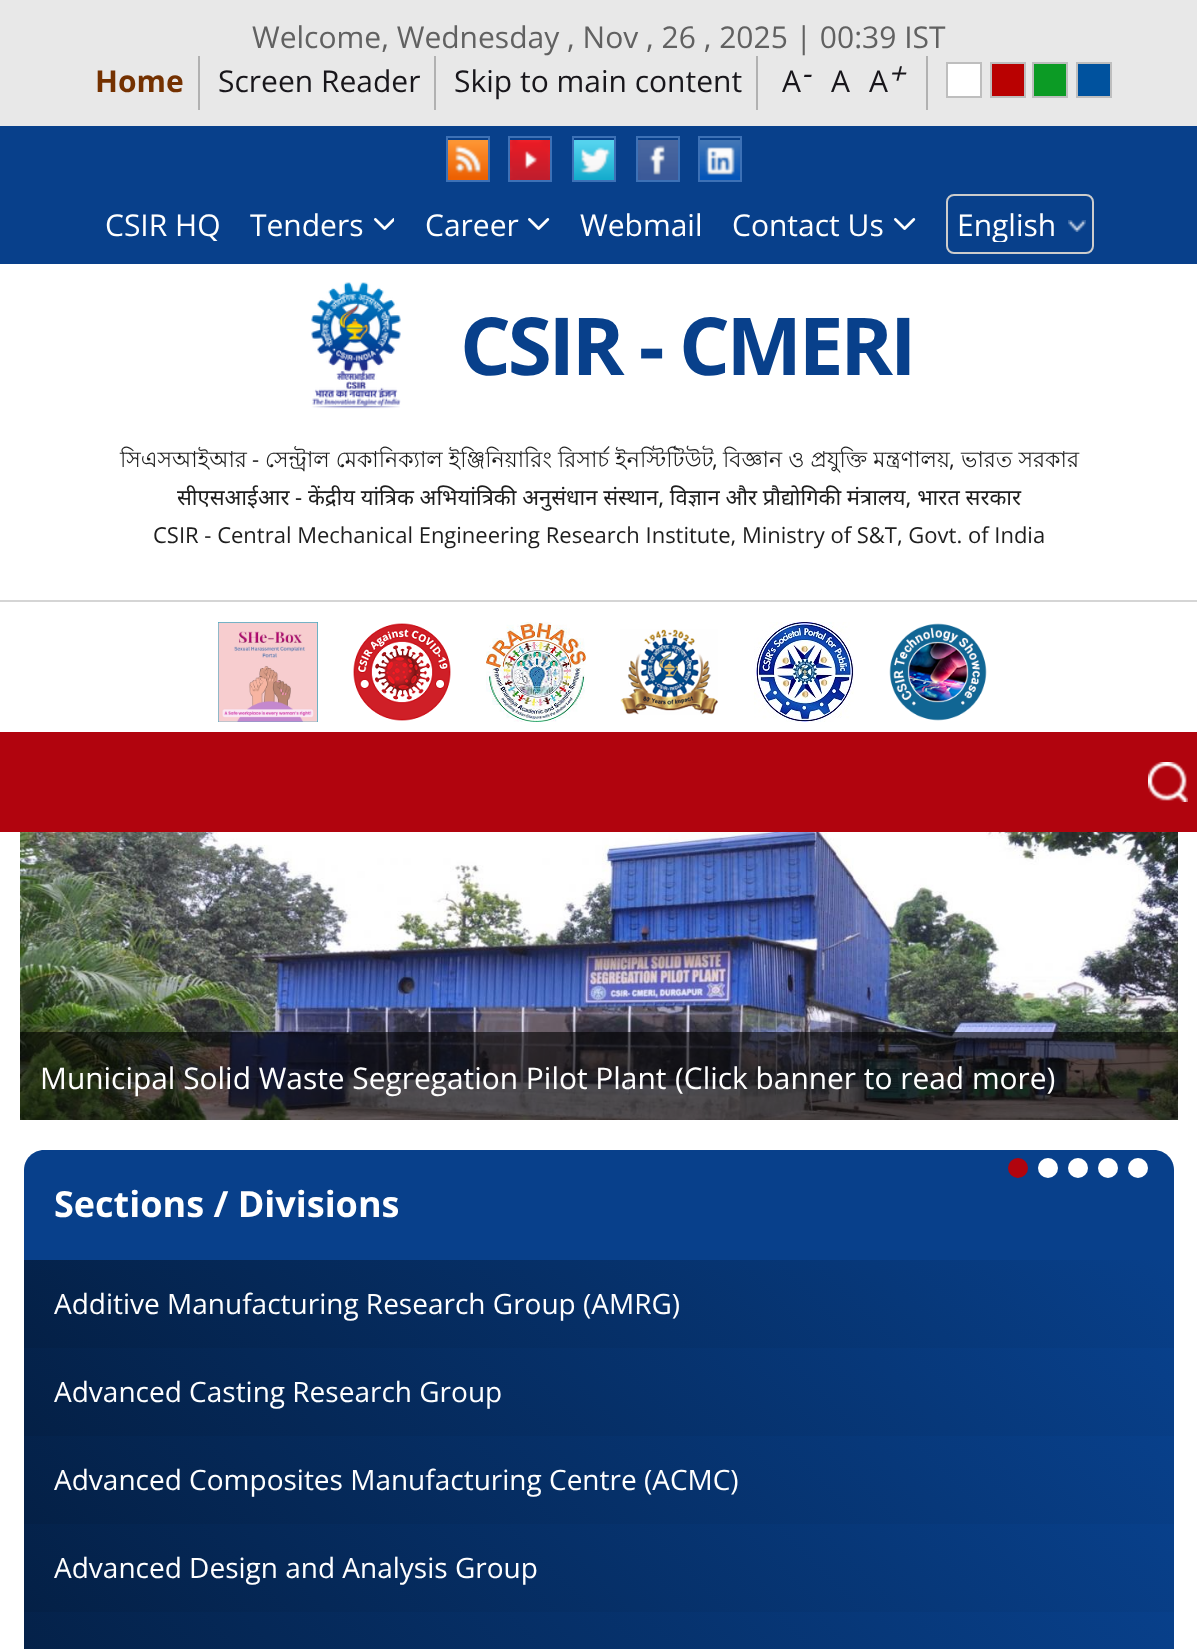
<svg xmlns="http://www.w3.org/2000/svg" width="1197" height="1649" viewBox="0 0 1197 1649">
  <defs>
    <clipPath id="clip1"><rect x="958" y="206" width="114" height="36"/></clipPath>
    <linearGradient id="g1" gradientUnits="userSpaceOnUse" x1="290" y1="1614" x2="909" y2="995"><stop offset="0" stop-color="#042046"/><stop offset="1" stop-color="#08408b"/></linearGradient>
    <linearGradient id="g2" gradientUnits="userSpaceOnUse" x1="290" y1="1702" x2="909" y2="1083"><stop offset="0" stop-color="#042046"/><stop offset="1" stop-color="#08408b"/></linearGradient>
    <linearGradient id="g3" gradientUnits="userSpaceOnUse" x1="290" y1="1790" x2="909" y2="1171"><stop offset="0" stop-color="#042046"/><stop offset="1" stop-color="#08408b"/></linearGradient>
    <linearGradient id="g4" gradientUnits="userSpaceOnUse" x1="290" y1="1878" x2="909" y2="1259"><stop offset="0" stop-color="#042046"/><stop offset="1" stop-color="#08408b"/></linearGradient>
    <linearGradient id="g5" gradientUnits="userSpaceOnUse" x1="290" y1="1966" x2="909" y2="1347"><stop offset="0" stop-color="#042046"/><stop offset="1" stop-color="#08408b"/></linearGradient>
  </defs>
  <rect width="100%" height="100%" fill="#ffffff"/>
  <rect x="0" y="0" width="1197" height="126" fill="#e8e8e8"/>
  <text x="252" y="48" font-family="Open Sans" font-size="30" fill="#616161">Welcome, Wednesday , Nov , 26 , 2025 | 00:39 IST</text>
  <rect x="198" y="56" width="2" height="54" fill="#b1b1b1"/>
  <text x="95" y="92" font-family="Open Sans" font-size="30" font-weight="bold" fill="#743100">Home</text>
  <rect x="434" y="56" width="2" height="54" fill="#b1b1b1"/>
  <text x="218" y="92" font-family="Open Sans" font-size="30" fill="#18161b">Screen Reader</text>
  <rect x="756" y="56" width="2" height="54" fill="#b1b1b1"/>
  <text x="454" y="92" font-family="Open Sans" font-size="30" fill="#18161b">Skip to main content</text>
  <rect x="926" y="56" width="2" height="54" fill="#b1b1b1"/>
  <text x="782" y="92" font-family="Open Sans" font-size="30" fill="#18161b">A</text>
  <text x="801" y="84" font-family="Open Sans" font-size="30" font-style="italic" fill="#18161b">-</text>
  <text x="831" y="92" font-family="Open Sans" font-size="30" fill="#18161b">A</text>
  <text x="869" y="92" font-family="Open Sans" font-size="30" fill="#18161b">A</text>
  <text x="888" y="84" font-family="Open Sans" font-size="30" font-style="italic" fill="#18161b">+</text>
  <rect x="947" y="63" width="34" height="34" fill="#ffffff" stroke="#bebebe" stroke-width="2"/>
  <rect x="991" y="63" width="34" height="34" fill="#b90101" stroke="#bebebe" stroke-width="2"/>
  <rect x="1033" y="63" width="34" height="34" fill="#0c9b25" stroke="#bebebe" stroke-width="2"/>
  <rect x="1077" y="63" width="34" height="34" fill="#00529e" stroke="#bebebe" stroke-width="2"/>
  <rect x="0" y="126" width="1197" height="138" fill="#08408b"/>
  <rect x="447" y="137" width="42" height="44" fill="none" stroke="#3d71b6" stroke-width="2"/>
  <image x="448" y="140" width="40" height="40" href="img1.png"/>
  <rect x="509" y="137" width="42" height="44" fill="none" stroke="#3d71b6" stroke-width="2"/>
  <image x="510" y="140" width="40" height="40" href="img2.png"/>
  <rect x="573" y="137" width="42" height="44" fill="none" stroke="#3d71b6" stroke-width="2"/>
  <image x="574" y="140" width="40" height="40" href="img3.png"/>
  <rect x="637" y="137" width="42" height="44" fill="none" stroke="#3d71b6" stroke-width="2"/>
  <image x="638" y="140" width="40" height="40" href="img4.png"/>
  <rect x="699" y="137" width="42" height="44" fill="none" stroke="#3d71b6" stroke-width="2"/>
  <image x="700" y="140" width="40" height="40" href="img5.png"/>
  <text x="105" y="236" font-family="Open Sans" font-size="30" fill="#ffffff">CSIR HQ</text>
  <text x="250" y="236" font-family="Open Sans" font-size="30" fill="#ffffff">Tenders</text>
  <image x="374" y="218" width="20" height="12" href="img6.png"/>
  <text x="425" y="236" font-family="Open Sans" font-size="30" fill="#ffffff">Career</text>
  <image x="528" y="218" width="22" height="12" href="img7.png"/>
  <text x="580" y="236" font-family="Open Sans" font-size="30" fill="#ffffff">Webmail</text>
  <text x="732" y="236" font-family="Open Sans" font-size="30" fill="#ffffff">Contact Us</text>
  <image x="894" y="218" width="22" height="12" href="img7.png"/>
  <image x="1068" y="220" width="18" height="12" href="img8.png"/>
  <rect x="947" y="195" width="146" height="58" rx="7" fill="none" stroke="#cccccc" stroke-width="2"/>
  <g clip-path="url(#clip1)">
    <text x="957" y="236" font-family="Open Sans" font-size="30" fill="#ffffff">English</text>
  </g>
  <image x="311" y="282" width="90" height="127" href="img9.png"/>
  <text x="460" y="375" font-family="Open Sans" font-size="80" font-weight="bold" letter-spacing="-3.25" fill="#08408b">CSIR - CMERI</text>
  <text x="120" y="467" font-family="Lohit Bengali" font-size="22" fill="#1e1e1e">সিএসআইআর</text>
  <text x="252" y="467" font-family="Open Sans" font-size="22" fill="#1e1e1e">-</text>
  <text x="265" y="467" font-family="Lohit Bengali" font-size="22" fill="#1e1e1e">সেন্ট্রাল মেকানিক্যাল ইঞ্জিনিয়ারিং রিসার্চ ইনস্টিটিউট</text>
  <text x="723" y="467" font-family="Lohit Bengali" font-size="22" fill="#1e1e1e">বিজ্ঞান ও প্রযুক্তি মন্ত্রণালয়</text>
  <text x="961" y="467" font-family="Lohit Bengali" font-size="22" fill="#1e1e1e">ভারত সরকার</text>
  <text x="712" y="467" font-family="Open Sans" font-size="22" fill="#1e1e1e">,</text>
  <text x="949" y="467" font-family="Open Sans" font-size="22" fill="#1e1e1e">,</text>
  <text x="177" y="505" font-family="Noto Sans" font-size="22" fill="#1e1e1e">सीएसआईआर - केंद्रीय यांत्रिक अभियांत्रिकी अनुसंधान संस्थान, विज्ञान और प्रौद्योगिकी मंत्रालय, भारत सरकार</text>
  <text x="153" y="543" font-family="Open Sans" font-size="22" fill="#1e1e1e">CSIR - Central Mechanical Engineering Research Institute, Ministry of S&amp;T, Govt. of India</text>
  <rect x="0" y="600" width="1197" height="2" fill="#d5d5d5"/>
  <image x="218" y="622" width="100" height="100" href="img10.png"/>
  <image x="353" y="623" width="98" height="98" href="img11.png"/>
  <image x="486" y="622" width="100" height="100" href="img12.png"/>
  <image x="620" y="629" width="98" height="86" href="img13.png"/>
  <image x="754" y="622" width="100" height="100" href="img14.png"/>
  <image x="889" y="623" width="98" height="98" href="img15.png"/>
  <rect x="0" y="732" width="1197" height="100" fill="#b1040e"/>
  <image x="1148" y="762" width="40" height="40" href="img16.png"/>
  <image x="20" y="832" width="1158" height="288" href="img17.png"/>
  <rect x="20" y="1032" width="1158" height="88" fill="#000000" fill-opacity="0.6"/>
  <text x="40" y="1089" font-family="Open Sans" font-size="29.9" fill="#ffffff">Municipal Solid Waste Segregation Pilot Plant</text>
  <text x="675" y="1089" font-family="Open Sans" font-size="29.9" fill="#ffffff">(Click banner to read more)</text>
  <path d="M44 1150H1154C1165 1150 1174 1159 1174 1170V1260H24V1170C24 1159 33 1150 44 1150Z" fill="#08408b"/>
  <circle cx="1018" cy="1168" r="10" fill="#b1040e"/>
  <circle cx="1048" cy="1168" r="10" fill="#ffffff"/>
  <circle cx="1078" cy="1168" r="10" fill="#ffffff"/>
  <circle cx="1108" cy="1168" r="10" fill="#ffffff"/>
  <circle cx="1138" cy="1168" r="10" fill="#ffffff"/>
  <text x="54" y="1217" font-family="Open Sans" font-size="36" font-weight="bold" fill="#ffffff">Sections / Divisions</text>
  <rect x="24" y="1260" width="1150" height="88" fill="url(#g1)"/>
  <text x="54" y="1314" font-family="Open Sans" font-size="28" fill="#ffffff">Additive Manufacturing Research Group (AMRG)</text>
  <rect x="24" y="1348" width="1150" height="88" fill="url(#g2)"/>
  <text x="54" y="1402" font-family="Open Sans" font-size="28" fill="#ffffff">Advanced Casting Research Group</text>
  <rect x="24" y="1436" width="1150" height="88" fill="url(#g3)"/>
  <text x="54" y="1490" font-family="Open Sans" font-size="28" fill="#ffffff">Advanced Composites Manufacturing Centre (ACMC)</text>
  <rect x="24" y="1524" width="1150" height="88" fill="url(#g4)"/>
  <text x="54" y="1578" font-family="Open Sans" font-size="28" fill="#ffffff">Advanced Design and Analysis Group</text>
  <rect x="24" y="1612" width="1150" height="37" fill="url(#g5)"/>
</svg>
